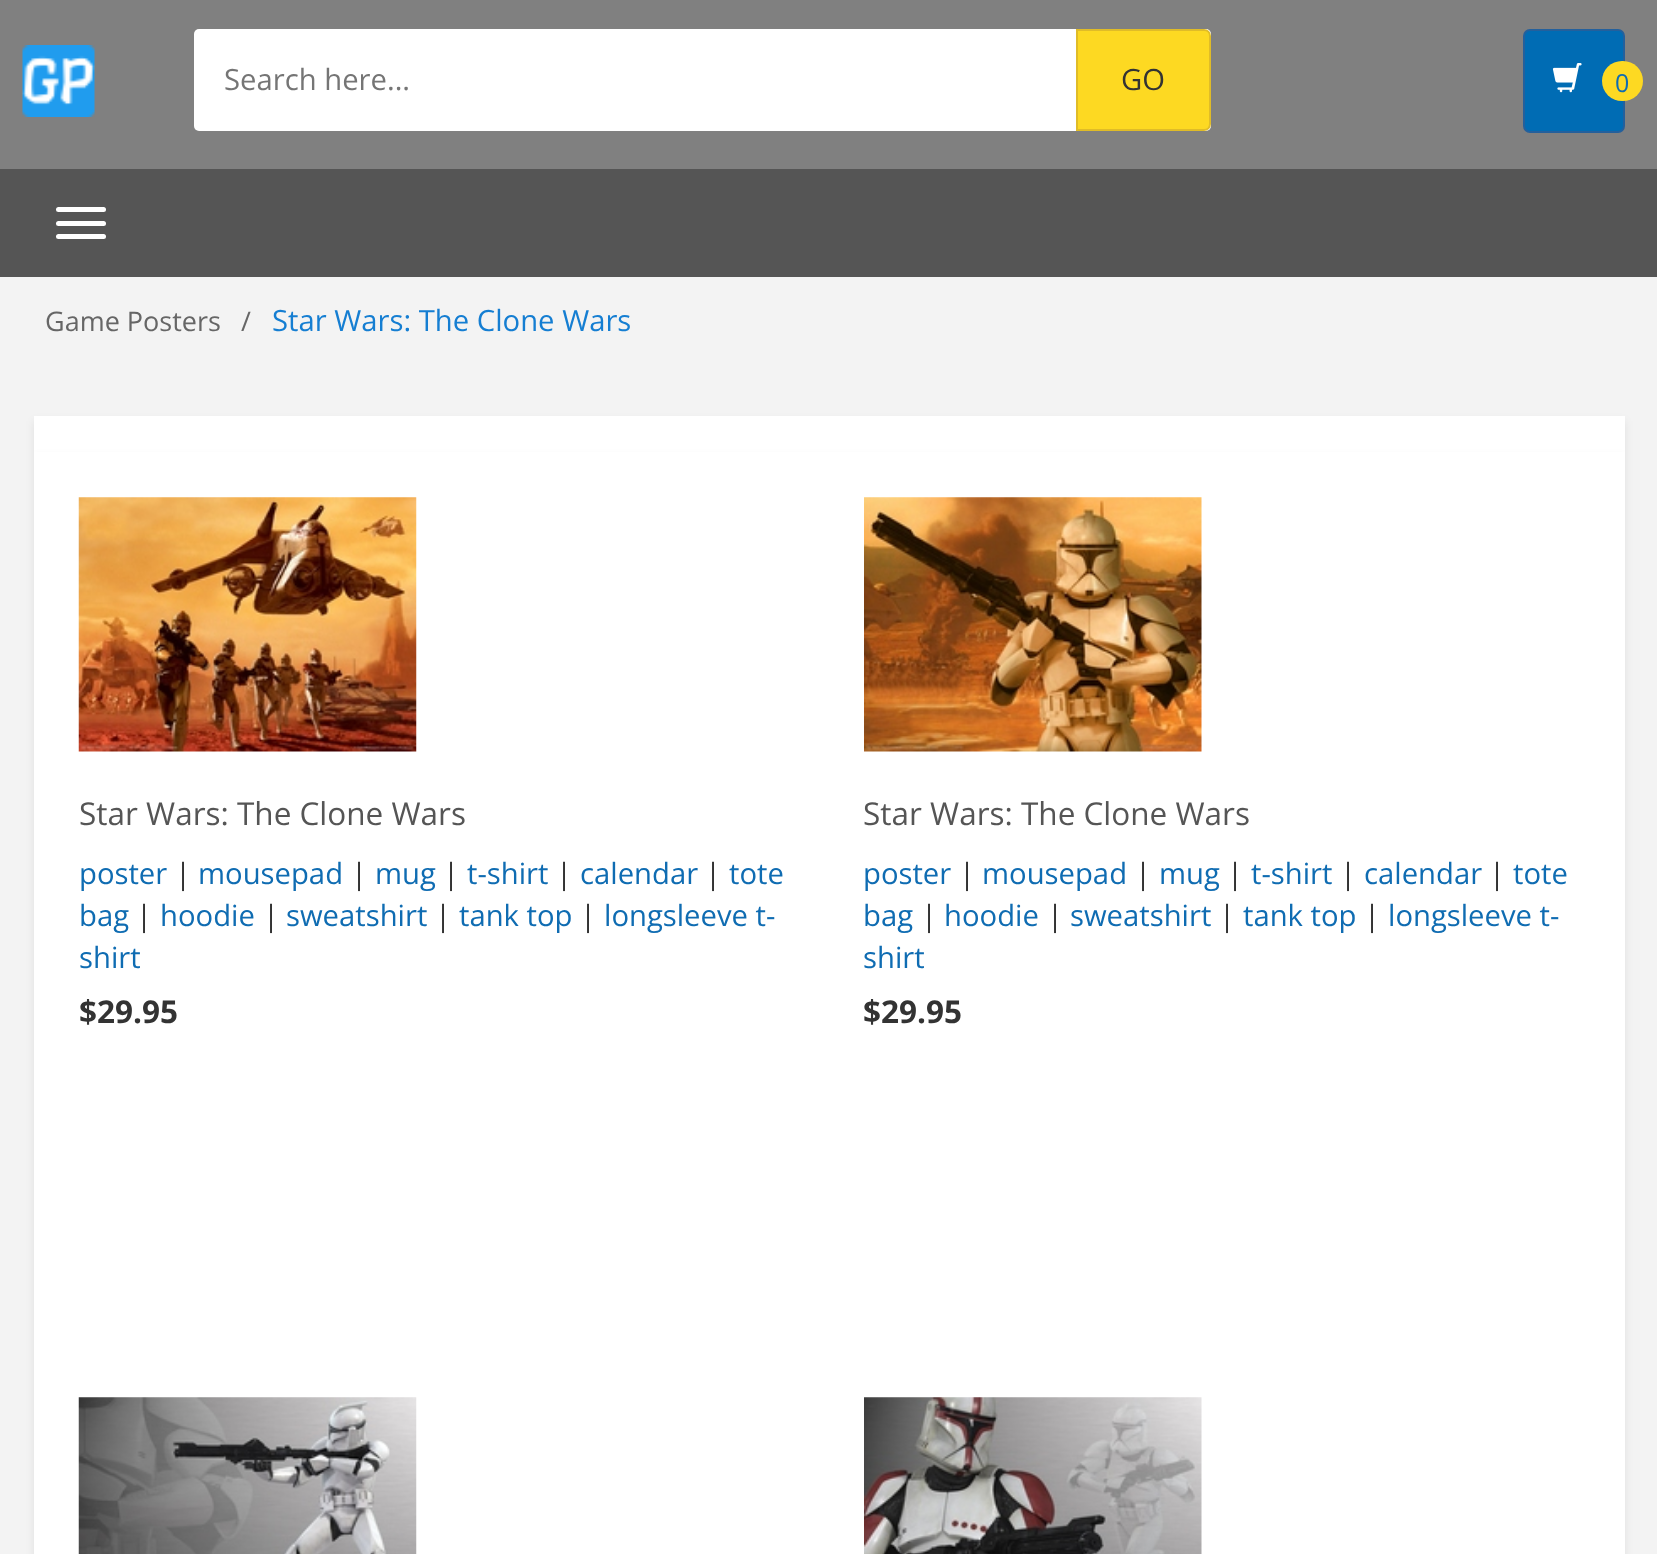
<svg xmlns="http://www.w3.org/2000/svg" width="1657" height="1554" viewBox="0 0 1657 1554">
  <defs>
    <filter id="blur1" x="-50%" y="-200%" width="200%" height="500%"><feGaussianBlur stdDeviation="4.5"/></filter>
  </defs>
  <rect width="100%" height="100%" fill="#f3f3f3"/>
  <rect x="0" y="0" width="1657" height="169" fill="#808080"/>
  <image x="22" y="45" width="73" height="72" href="img1.png"/>
  <rect x="194" y="29" width="1017" height="102" rx="5" fill="#ffffff"/>
  <text x="224" y="90" font-family="Open Sans" font-size="29.25" fill="#757575">Search here...</text>
  <path d="M1077 30H1204C1207.5 30 1210 32.5 1210 36V124C1210 127.5 1207.5 130 1204 130H1077Z" fill="#fdd922" stroke="#e0bc27" stroke-width="2"/>
  <text x="1121" y="90" font-family="Open Sans" font-size="29.25" fill="#333333">GO</text>
  <rect x="1524" y="30" width="100" height="102" rx="6" fill="#006cb4" stroke="#24609c" stroke-width="2"/>
  <image x="1552" y="63" width="30" height="30" href="img2.png"/>
  <rect x="1602" y="61" width="41" height="40" rx="20" fill="#fdd922"/>
  <text x="1615" y="92" font-family="Open Sans" font-size="25" fill="#0f6cb2">0</text>
  <rect x="0" y="169" width="1657" height="108" fill="#555555"/>
  <rect x="56" y="207" width="50" height="5" rx="2.5" fill="#ffffff"/>
  <rect x="56" y="221" width="50" height="5" rx="2.5" fill="#ffffff"/>
  <rect x="56" y="234" width="50" height="5" rx="2.5" fill="#ffffff"/>
  <text x="45" y="331" font-family="Open Sans" font-size="27" fill="#666666">Game Posters</text>
  <text x="241" y="331" font-family="Open Sans" font-size="27" fill="#666666">/</text>
  <text x="272" y="331" font-family="Open Sans" font-size="29.25" fill="#157ed2">Star Wars: The Clone Wars</text>
  <rect x="34" y="421" width="1591" height="36" fill="#000000" fill-opacity="0.08" filter="url(#blur1)"/>
  <rect x="34" y="416" width="1591" height="36" fill="#ffffff"/>
  <rect x="34" y="457" width="1591" height="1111" fill="#000000" fill-opacity="0.08" filter="url(#blur1)"/>
  <rect x="34" y="452" width="1591" height="1102" fill="#ffffff"/>
  <image x="78" y="497" width="339" height="255" href="img3.png"/>
  <text x="79" y="825" font-family="Open Sans" font-size="31.5" fill="#555555">Star Wars: The Clone Wars</text>
  <text x="79" y="884" font-family="Open Sans" font-size="29.25" fill="#0f6cb2">poster</text>
  <text x="175" y="884" font-family="Open Sans" font-size="29.25" fill="#333333">|</text>
  <text x="198" y="884" font-family="Open Sans" font-size="29.25" fill="#0f6cb2">mousepad</text>
  <text x="351" y="884" font-family="Open Sans" font-size="29.25" fill="#333333">|</text>
  <text x="375" y="884" font-family="Open Sans" font-size="29.25" fill="#0f6cb2">mug</text>
  <text x="443" y="884" font-family="Open Sans" font-size="29.25" fill="#333333">|</text>
  <text x="467" y="884" font-family="Open Sans" font-size="29.25" fill="#0f6cb2">t-shirt</text>
  <text x="556" y="884" font-family="Open Sans" font-size="29.25" fill="#333333">|</text>
  <text x="580" y="884" font-family="Open Sans" font-size="29.25" fill="#0f6cb2">calendar</text>
  <text x="705" y="884" font-family="Open Sans" font-size="29.25" fill="#333333">|</text>
  <text x="729" y="884" font-family="Open Sans" font-size="29.25" fill="#0f6cb2">tote</text>
  <text x="79" y="926" font-family="Open Sans" font-size="29.25" fill="#0f6cb2">bag</text>
  <text x="136" y="926" font-family="Open Sans" font-size="29.25" fill="#333333">|</text>
  <text x="160" y="926" font-family="Open Sans" font-size="29.25" fill="#0f6cb2">hoodie</text>
  <text x="263" y="926" font-family="Open Sans" font-size="29.25" fill="#333333">|</text>
  <text x="286" y="926" font-family="Open Sans" font-size="29.25" fill="#0f6cb2">sweatshirt</text>
  <text x="435" y="926" font-family="Open Sans" font-size="29.25" fill="#333333">|</text>
  <text x="459" y="926" font-family="Open Sans" font-size="29.25" fill="#0f6cb2">tank top</text>
  <text x="580" y="926" font-family="Open Sans" font-size="29.25" fill="#333333">|</text>
  <text x="604" y="926" font-family="Open Sans" font-size="29.25" fill="#0f6cb2">longsleeve t-</text>
  <text x="79" y="968" font-family="Open Sans" font-size="29.25" fill="#0f6cb2">shirt</text>
  <text x="79" y="1023" font-family="Open Sans" font-size="31.5" font-weight="bold" fill="#333333">$29.95</text>
  <image x="864" y="497" width="338" height="255" href="img4.png"/>
  <text x="863" y="825" font-family="Open Sans" font-size="31.5" fill="#555555">Star Wars: The Clone Wars</text>
  <text x="863" y="884" font-family="Open Sans" font-size="29.25" fill="#0f6cb2">poster</text>
  <text x="959" y="884" font-family="Open Sans" font-size="29.25" fill="#333333">|</text>
  <text x="982" y="884" font-family="Open Sans" font-size="29.25" fill="#0f6cb2">mousepad</text>
  <text x="1135" y="884" font-family="Open Sans" font-size="29.25" fill="#333333">|</text>
  <text x="1159" y="884" font-family="Open Sans" font-size="29.25" fill="#0f6cb2">mug</text>
  <text x="1227" y="884" font-family="Open Sans" font-size="29.25" fill="#333333">|</text>
  <text x="1251" y="884" font-family="Open Sans" font-size="29.25" fill="#0f6cb2">t-shirt</text>
  <text x="1340" y="884" font-family="Open Sans" font-size="29.25" fill="#333333">|</text>
  <text x="1364" y="884" font-family="Open Sans" font-size="29.25" fill="#0f6cb2">calendar</text>
  <text x="1489" y="884" font-family="Open Sans" font-size="29.25" fill="#333333">|</text>
  <text x="1513" y="884" font-family="Open Sans" font-size="29.25" fill="#0f6cb2">tote</text>
  <text x="863" y="926" font-family="Open Sans" font-size="29.25" fill="#0f6cb2">bag</text>
  <text x="921" y="926" font-family="Open Sans" font-size="29.25" fill="#333333">|</text>
  <text x="944" y="926" font-family="Open Sans" font-size="29.25" fill="#0f6cb2">hoodie</text>
  <text x="1047" y="926" font-family="Open Sans" font-size="29.25" fill="#333333">|</text>
  <text x="1070" y="926" font-family="Open Sans" font-size="29.25" fill="#0f6cb2">sweatshirt</text>
  <text x="1219" y="926" font-family="Open Sans" font-size="29.25" fill="#333333">|</text>
  <text x="1243" y="926" font-family="Open Sans" font-size="29.25" fill="#0f6cb2">tank top</text>
  <text x="1364" y="926" font-family="Open Sans" font-size="29.25" fill="#333333">|</text>
  <text x="1388" y="926" font-family="Open Sans" font-size="29.25" fill="#0f6cb2">longsleeve t-</text>
  <text x="863" y="968" font-family="Open Sans" font-size="29.25" fill="#0f6cb2">shirt</text>
  <text x="863" y="1023" font-family="Open Sans" font-size="31.5" font-weight="bold" fill="#333333">$29.95</text>
  <image x="78" y="1397" width="339" height="157" href="img5.png"/>
  <image x="864" y="1397" width="338" height="157" href="img6.png"/>
</svg>
